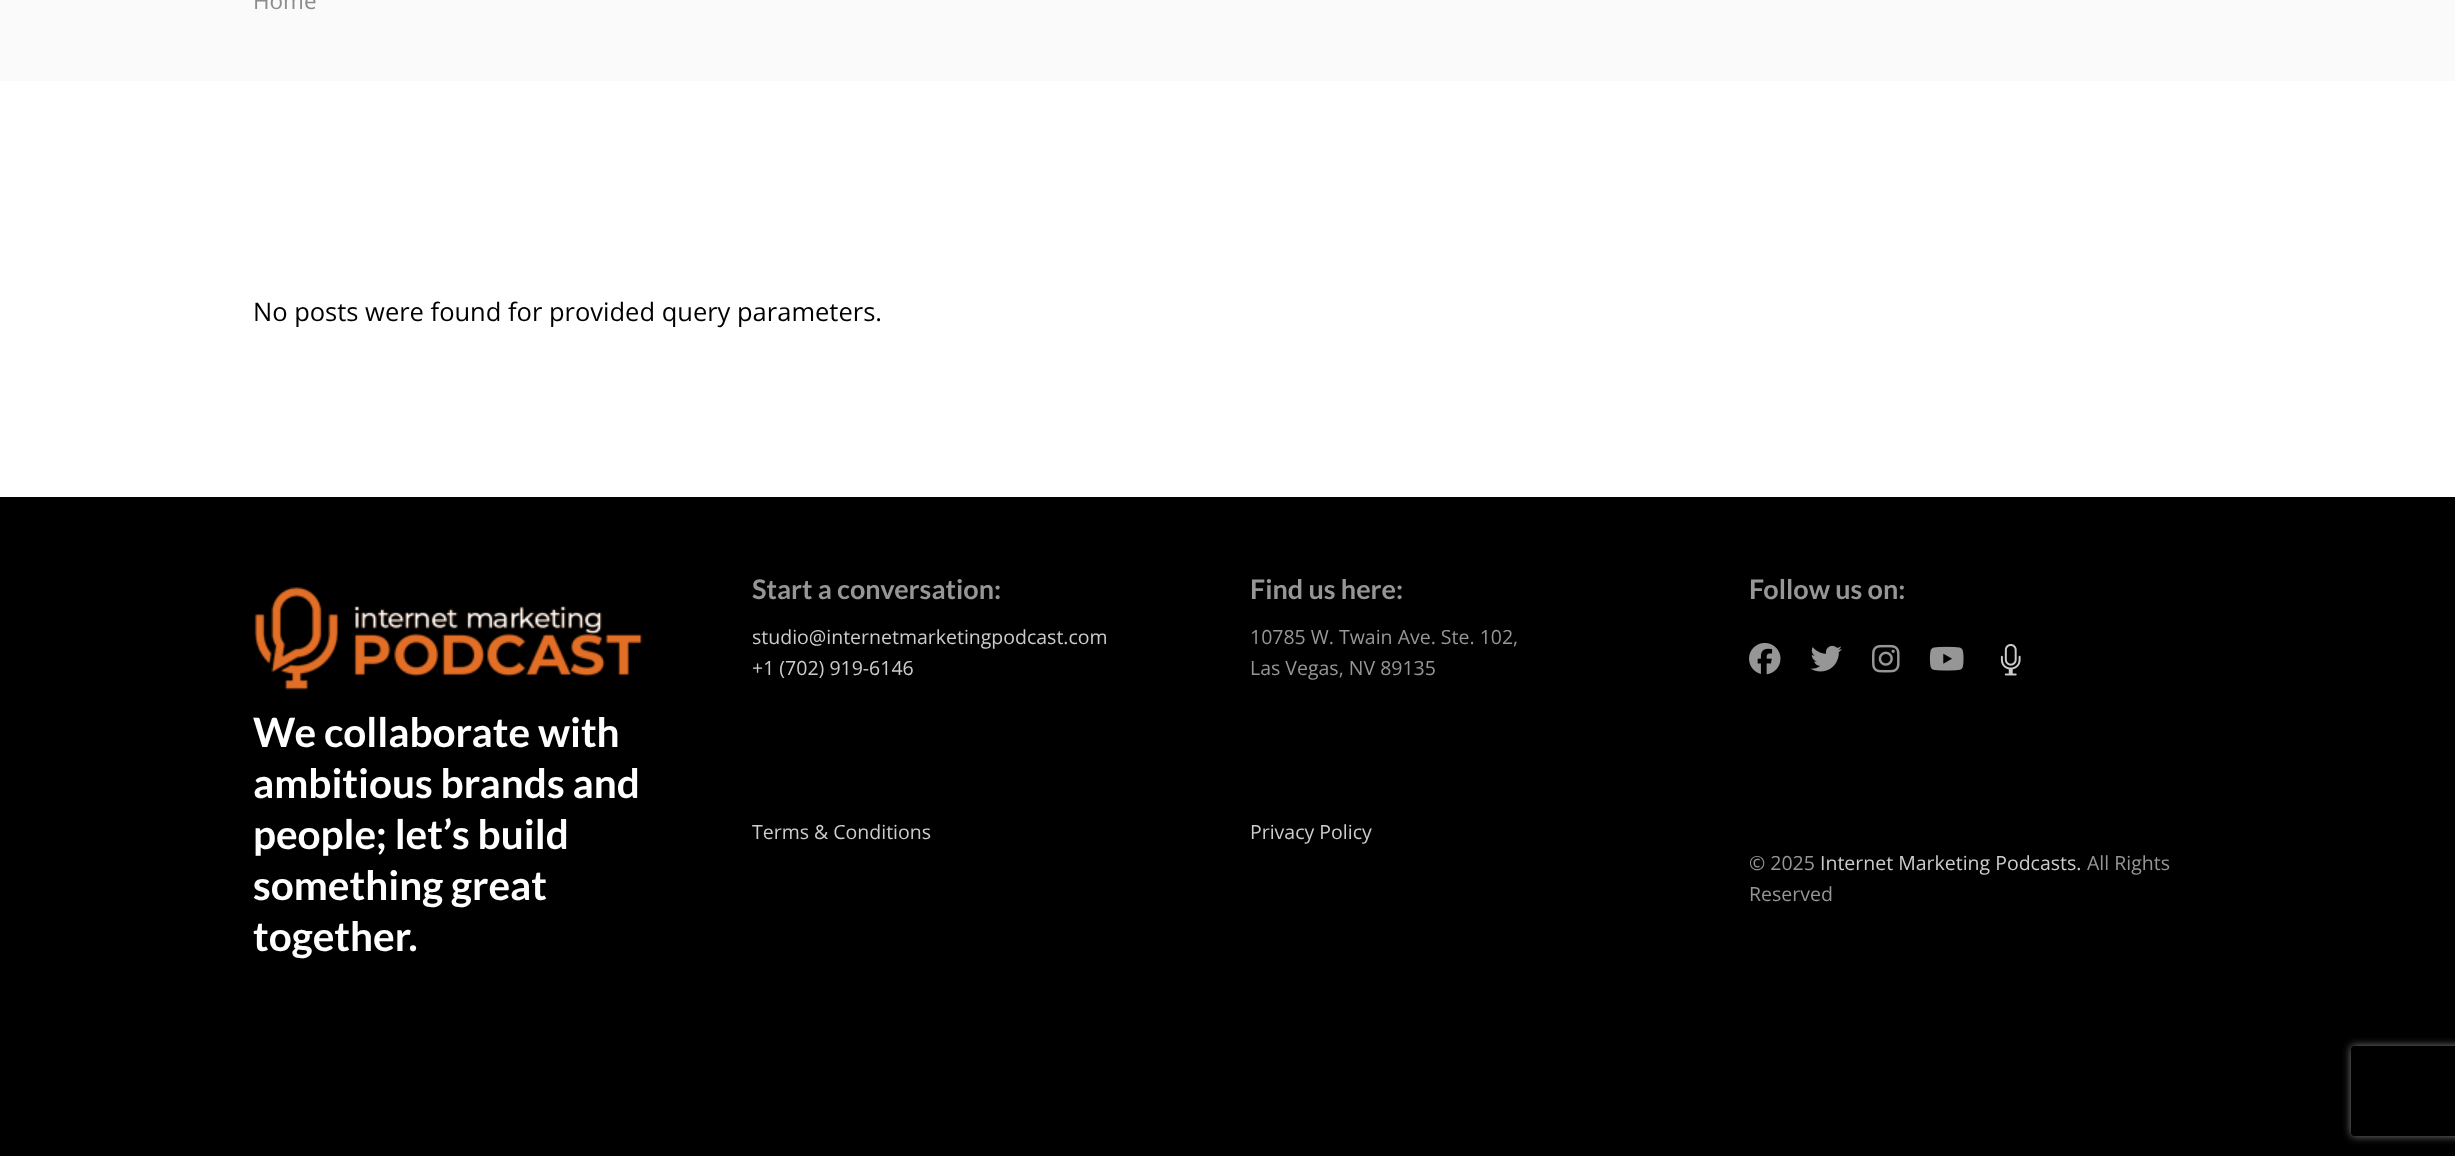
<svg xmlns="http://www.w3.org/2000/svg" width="2455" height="1156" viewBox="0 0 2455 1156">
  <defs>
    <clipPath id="clip1"><path d="M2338 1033H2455V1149H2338ZM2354 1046H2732C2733.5 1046 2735 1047.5 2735 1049V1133C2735 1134.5 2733.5 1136 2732 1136H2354C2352.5 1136 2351 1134.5 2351 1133V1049C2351 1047.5 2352.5 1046 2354 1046Z" clip-rule="evenodd"/></clipPath>
    <filter id="blur1" x="-50%" y="-200%" width="200%" height="500%"><feGaussianBlur stdDeviation="4"/></filter>
  </defs>
  <rect width="100%" height="100%" fill="#ffffff"/>
  <rect x="0" y="0" width="2455" height="81" fill="#fafafa"/>
  <text x="253" y="9" font-family="Open Sans" font-size="22.5" fill="#8e8b8c">Home</text>
  <text x="253" y="321" font-family="Open Sans" font-size="25.5" fill="#000000">No posts were found for provided query parameters.</text>
  <rect x="0" y="497" width="2455" height="659" fill="#000000"/>
  <image x="254" y="587" width="389" height="103" href="img1.png"/>
  <text x="253" y="747" font-family="Lato" font-size="40.5" font-weight="bold" fill="#ffffff">We collaborate with</text>
  <text x="253" y="798" font-family="Lato" font-size="40.5" font-weight="bold" fill="#ffffff">ambitious brands and</text>
  <text x="253" y="849" font-family="Lato" font-size="40.5" font-weight="bold" fill="#ffffff">people; let’s build</text>
  <text x="253" y="900" font-family="Lato" font-size="40.5" font-weight="bold" fill="#ffffff">something great</text>
  <text x="253" y="951" font-family="Lato" font-size="40.5" font-weight="bold" fill="#ffffff">together.</text>
  <text x="752" y="599" font-family="Lato" font-size="27" font-weight="bold" fill="#969696">Start a conversation:</text>
  <text x="752" y="644" font-family="Open Sans" font-size="19.5" fill="#cccccc">studio@internetmarketingpodcast.com</text>
  <text x="752" y="675" font-family="Open Sans" font-size="19.5" fill="#cccccc">+1 (702) 919-6146</text>
  <text x="752" y="839" font-family="Open Sans" font-size="19.5" fill="#cccccc">Terms &amp; Conditions</text>
  <text x="1250" y="599" font-family="Lato" font-size="27" font-weight="bold" fill="#969696">Find us here:</text>
  <text x="1250" y="644" font-family="Open Sans" font-size="19.5" fill="#969696">10785 W. Twain Ave. Ste. 102,</text>
  <text x="1250" y="675" font-family="Open Sans" font-size="19.5" fill="#969696">Las Vegas, NV 89135</text>
  <text x="1250" y="839" font-family="Open Sans" font-size="19.5" fill="#cccccc">Privacy Policy</text>
  <text x="1749" y="599" font-family="Lato" font-size="27" font-weight="bold" fill="#969696">Follow us on:</text>
  <image x="1749" y="642" width="32" height="33" href="img2.png"/>
  <image x="1810" y="645" width="32" height="27" href="img3.png"/>
  <image x="1872" y="644" width="28" height="29" href="img4.png"/>
  <image x="1929" y="646" width="35" height="25" href="img5.png"/>
  <image x="2000" y="644" width="21" height="32" href="img6.png"/>
  <text x="1749" y="870" font-family="Open Sans" font-size="19.5" fill="#969696">© 2025</text>
  <text x="1820" y="870" font-family="Open Sans" font-size="19.5" fill="#cccccc">Internet Marketing Podcasts.</text>
  <text x="2087" y="870" font-family="Open Sans" font-size="19.5" fill="#969696">All Rights</text>
  <text x="1749" y="901" font-family="Open Sans" font-size="19.5" fill="#969696">Reserved</text>
  <g clip-path="url(#clip1)">
    <rect x="2351" y="1046" width="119" height="90" rx="3" fill="#808080" filter="url(#blur1)"/>
  </g>
</svg>
